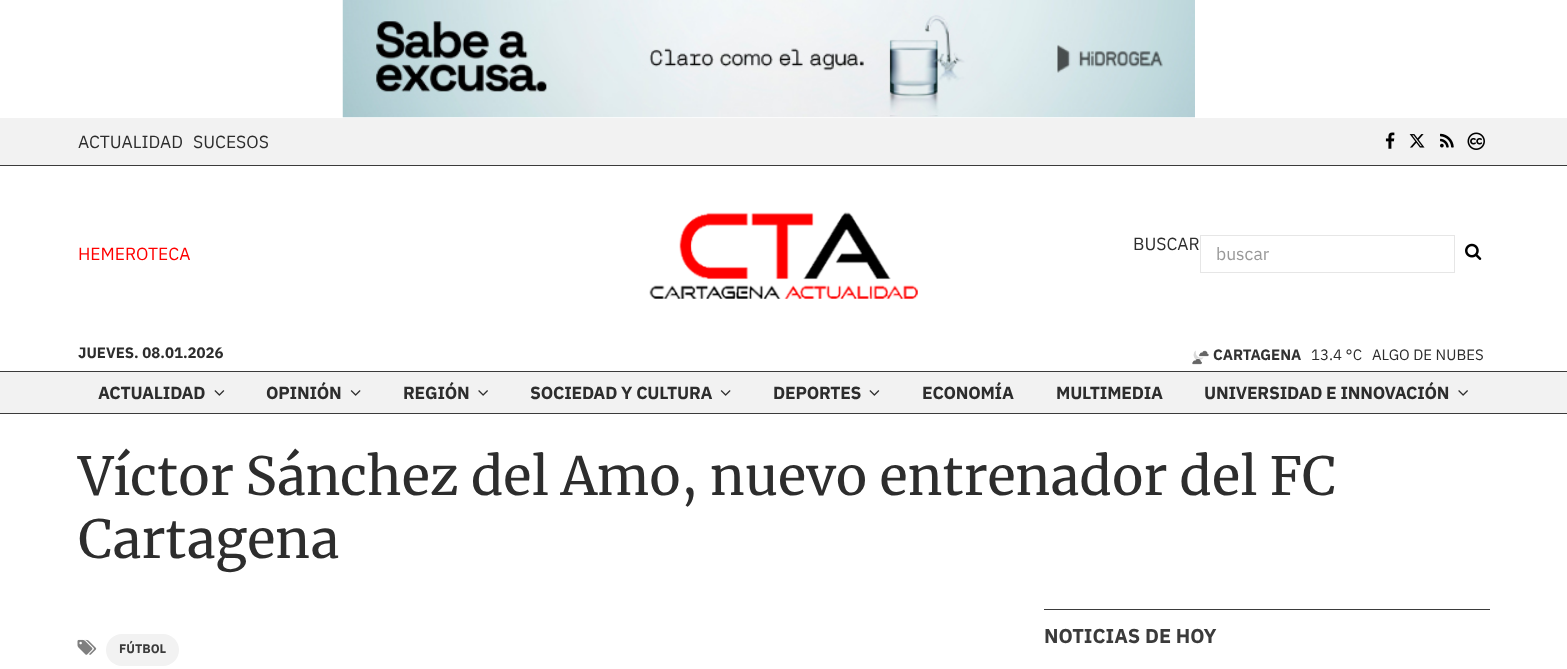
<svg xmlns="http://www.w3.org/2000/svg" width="1567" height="669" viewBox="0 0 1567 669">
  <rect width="100%" height="100%" fill="#ffffff"/>
  <image x="342" y="0" width="853" height="118" href="img1.png"/>
  <rect x="0" y="118" width="1567" height="47" fill="#f2f2f2"/>
  <rect x="0" y="165" width="1567" height="1" fill="#3b3b3b"/>
  <text x="78" y="148" font-family="IBM Plex Sans" font-size="17.5" fill="#2d2d2d">ACTUALIDAD</text>
  <text x="193" y="148" font-family="IBM Plex Sans" font-size="17.5" fill="#2d2d2d">SUCESOS</text>
  <image x="1385" y="132" width="10" height="17" href="img2.png"/>
  <image x="1409" y="134" width="16" height="14" href="img3.png"/>
  <image x="1440" y="133" width="14" height="15" href="img4.png"/>
  <image x="1467" y="132" width="18" height="18" href="img5.png"/>
  <text x="78" y="260" font-family="IBM Plex Sans" font-size="17.5" fill="#ff0000">HEMEROTECA</text>
  <image x="649" y="212" width="269" height="87" href="img6.png"/>
  <text x="1133" y="250" font-family="IBM Plex Sans" font-size="17.5" fill="#2d2d2d">BUSCAR</text>
  <rect x="1200.5" y="235.5" width="254" height="37" fill="none" stroke="#e6e6e6"/>
  <text x="1216" y="260" font-family="IBM Plex Sans" font-size="17.5" fill="#999999">buscar</text>
  <image x="1465" y="243" width="17" height="17" href="img7.png"/>
  <text x="78" y="358" font-family="IBM Plex Sans" font-size="15" font-weight="bold" fill="#2d2d2d">JUEVES. 08.01.2026</text>
  <image x="1192" y="350" width="17" height="15" href="img8.png"/>
  <text x="1213" y="360" font-family="IBM Plex Sans" font-size="15" font-weight="bold" fill="#333333">CARTAGENA</text>
  <text x="1311" y="360" font-family="IBM Plex Sans" font-size="15" fill="#2d2d2d">13.4 °C</text>
  <text x="1372" y="360" font-family="IBM Plex Sans" font-size="15" fill="#2d2d2d">ALGO DE NUBES</text>
  <rect x="0" y="372" width="1567" height="41" fill="#f2f2f2"/>
  <rect x="0" y="371" width="1567" height="1" fill="#3b3b3b"/>
  <rect x="0" y="413" width="1567" height="1" fill="#3b3b3b"/>
  <text x="98" y="399" font-family="IBM Plex Sans" font-size="17.5" font-weight="bold" letter-spacing="-0.2" fill="#2d2d2d">ACTUALIDAD</text>
  <image x="214" y="390" width="11" height="6" href="img9.png"/>
  <text x="266" y="399" font-family="IBM Plex Sans" font-size="17.5" font-weight="bold" letter-spacing="-0.2" fill="#2d2d2d">OPINIÓN</text>
  <image x="350" y="390" width="11" height="6" href="img10.png"/>
  <text x="403" y="399" font-family="IBM Plex Sans" font-size="17.5" font-weight="bold" letter-spacing="-0.2" fill="#2d2d2d">REGIÓN</text>
  <image x="478" y="390" width="10" height="6" href="img11.png"/>
  <text x="530" y="399" font-family="IBM Plex Sans" font-size="17.5" font-weight="bold" letter-spacing="-0.2" fill="#2d2d2d">SOCIEDAD Y CULTURA</text>
  <image x="720" y="390" width="11" height="6" href="img10.png"/>
  <text x="773" y="399" font-family="IBM Plex Sans" font-size="17.5" font-weight="bold" letter-spacing="-0.2" fill="#2d2d2d">DEPORTES</text>
  <image x="869" y="390" width="11" height="6" href="img9.png"/>
  <text x="922" y="399" font-family="IBM Plex Sans" font-size="17.5" font-weight="bold" letter-spacing="-0.2" fill="#2d2d2d">ECONOMÍA</text>
  <text x="1056" y="399" font-family="IBM Plex Sans" font-size="17.5" font-weight="bold" letter-spacing="-0.2" fill="#2d2d2d">MULTIMEDIA</text>
  <text x="1204" y="399" font-family="IBM Plex Sans" font-size="17.5" font-weight="bold" letter-spacing="-0.2" fill="#2d2d2d">UNIVERSIDAD E INNOVACIÓN</text>
  <image x="1458" y="390" width="10" height="6" href="img11.png"/>
  <text x="78" y="495" font-family="Merriweather" font-size="52.5" letter-spacing="-0.25" fill="#2d2d2d">Víctor Sánchez del Amo, nuevo entrenador del FC</text>
  <text x="78" y="558" font-family="Merriweather" font-size="52.5" letter-spacing="-0.25" fill="#2d2d2d">Cartagena</text>
  <rect x="1044" y="609" width="446" height="1" fill="#3b3b3b"/>
  <text x="1044" y="643" font-family="IBM Plex Sans" font-size="20" font-weight="bold" fill="#3b3b3b">NOTICIAS DE HOY</text>
  <image x="77" y="639" width="20" height="16" href="img12.png"/>
  <rect x="106" y="634" width="73" height="32" rx="16" fill="#f2f2f2"/>
  <text x="119" y="653" font-family="IBM Plex Sans" font-size="12.5" font-weight="bold" fill="#3b3b3b">FÚTBOL</text>
</svg>
